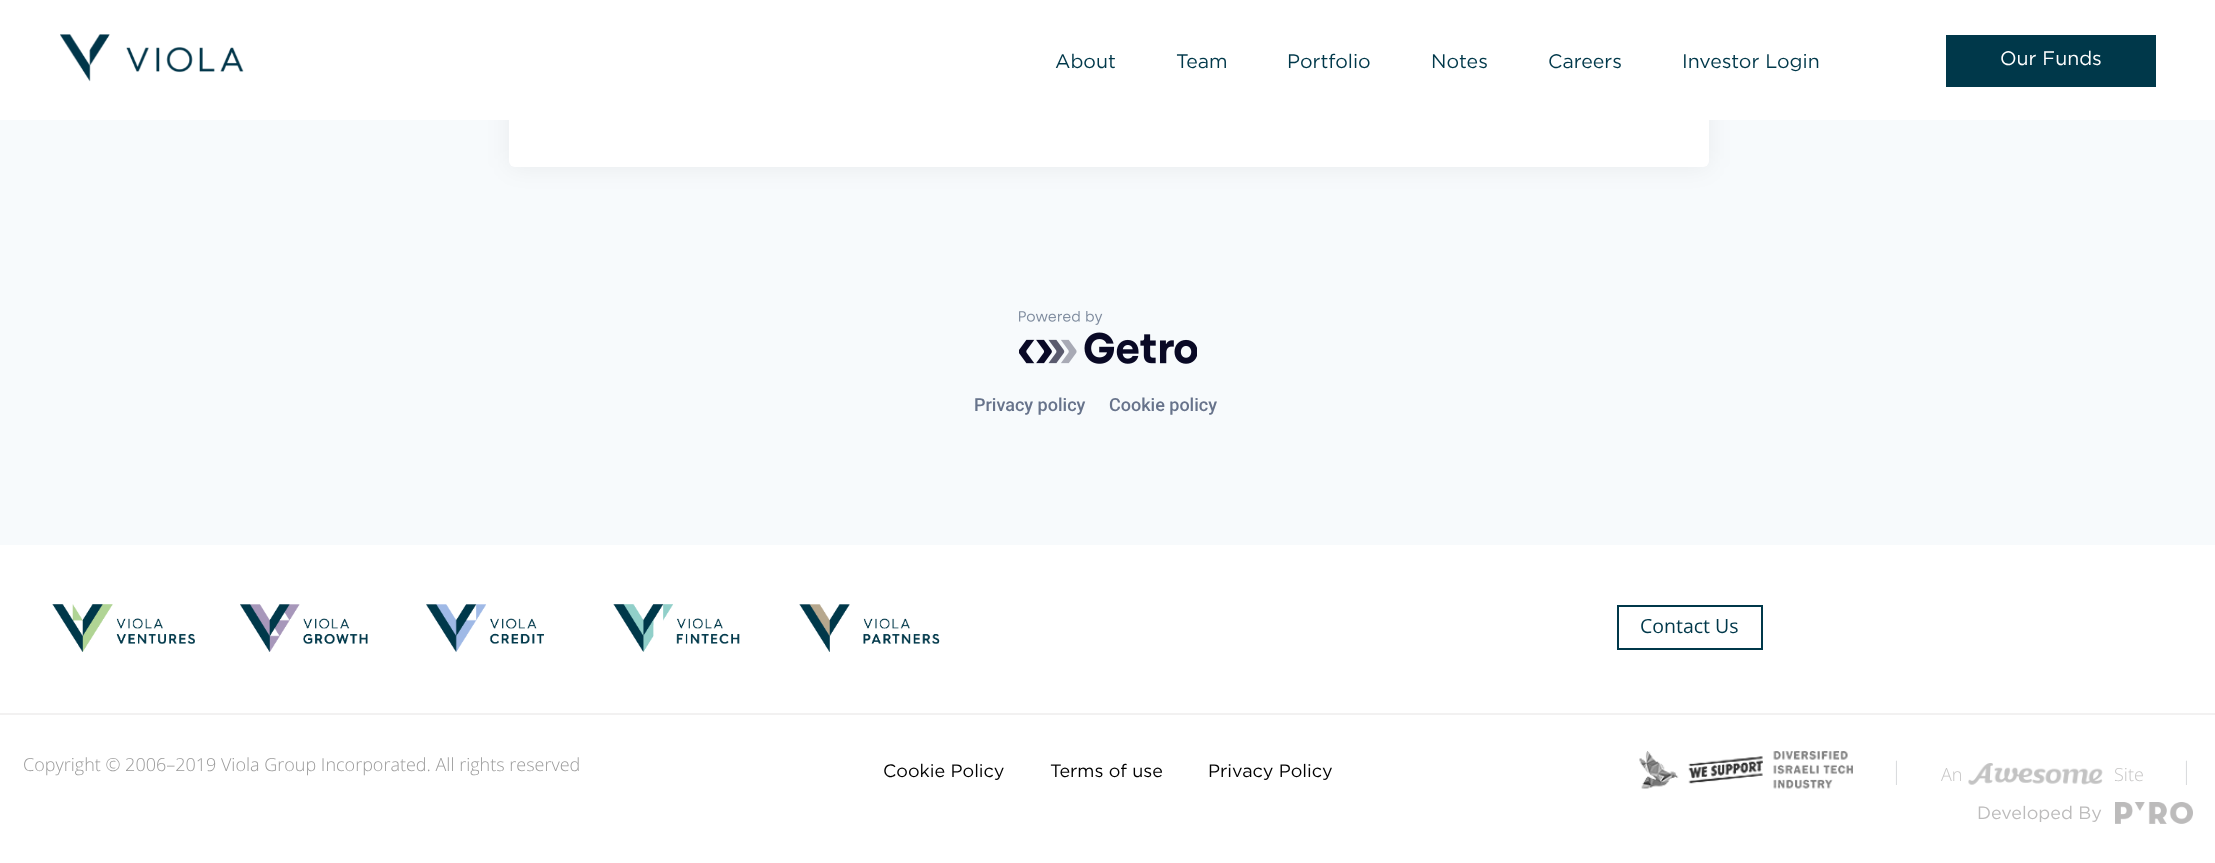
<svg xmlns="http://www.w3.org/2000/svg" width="2215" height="863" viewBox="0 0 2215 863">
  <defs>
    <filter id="blur1" x="-50%" y="-200%" width="200%" height="500%"><feGaussianBlur stdDeviation="12"/></filter>
  </defs>
  <rect width="100%" height="100%" fill="#f7fafc"/>
  <rect x="509" y="-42" width="1200" height="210" rx="6" fill="#1b2432" fill-opacity="0.06" filter="url(#blur1)"/>
  <rect x="509" y="-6" width="1200" height="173" rx="6" fill="#ffffff"/>
  <rect x="0" y="0" width="2215" height="120" fill="#ffffff"/>
  <image x="60" y="34" width="184" height="48" href="img1.png"/>
  <text x="1055" y="68" font-family="Gotham" font-size="19.5" fill="#00384a">About</text>
  <text x="1176" y="68" font-family="Gotham" font-size="19.5" fill="#00384a">Team</text>
  <text x="1287" y="68" font-family="Gotham" font-size="19.5" fill="#00384a">Portfolio</text>
  <text x="1431" y="68" font-family="Gotham" font-size="19.5" fill="#00384a">Notes</text>
  <text x="1548" y="68" font-family="Gotham" font-size="19.5" fill="#00384a">Careers</text>
  <text x="1682" y="68" font-family="Gotham" font-size="19.5" fill="#00384a">Investor Login</text>
  <rect x="1946" y="35" width="210" height="52" fill="#00384a"/>
  <text x="2000" y="65" font-family="Gotham" font-size="19.5" fill="#ffffff">Our Funds</text>
  <image x="1019" y="311" width="178" height="53" href="img2.png"/>
  <text x="974" y="411" font-family="Roboto" font-size="18" font-weight="500" fill="#67738b">Privacy policy</text>
  <text x="1109" y="411" font-family="Roboto" font-size="18" font-weight="500" fill="#67738b">Cookie policy</text>
  <rect x="0" y="545" width="2215" height="318" fill="#ffffff"/>
  <rect x="0" y="713" width="2215" height="2" fill="#f2f1f1"/>
  <image x="52" y="604" width="143" height="48" href="img3.png"/>
  <image x="240" y="604" width="128" height="48" href="img4.png"/>
  <image x="426" y="604" width="118" height="48" href="img5.png"/>
  <image x="613" y="604" width="127" height="48" href="img6.png"/>
  <image x="799" y="604" width="141" height="48" href="img7.png"/>
  <rect x="1618" y="606" width="144" height="43" fill="none" stroke="#00384a" stroke-width="2"/>
  <text x="1640" y="633" font-family="Open Sans" font-size="19.5" fill="#00384a">Contact Us</text>
  <text x="23" y="771" font-family="Open Sans" font-size="18" font-weight="300" fill="#9b9b9b">Copyright © 2006–2019 Viola Group Incorporated. All rights reserved</text>
  <text x="883" y="777" font-family="Gotham" font-size="18" fill="#000000">Cookie Policy</text>
  <text x="1050" y="777" font-family="Gotham" font-size="18" fill="#000000">Terms of use</text>
  <text x="1208" y="777" font-family="Gotham" font-size="18" fill="#000000">Privacy Policy</text>
  <image x="1639" y="751" width="214" height="38" href="img8.png"/>
  <text x="1890" y="779" font-family="Open Sans" font-size="24" font-weight="300" fill="#d9dbde">|</text>
  <text x="1941" y="781" font-family="Open Sans" font-size="18" font-weight="300" fill="#c6c5c5">An</text>
  <image x="1968" y="763" width="135" height="22" href="img9.png"/>
  <text x="2114" y="781" font-family="Open Sans" font-size="18" font-weight="300" fill="#c6c5c5">Site</text>
  <text x="2180" y="779" font-family="Open Sans" font-size="24" font-weight="300" fill="#d9dbde">|</text>
  <text x="1977" y="819" font-family="Gotham" font-size="18" fill="#bdbcbc">Developed By</text>
  <image x="2115" y="802" width="78" height="22" href="img10.png"/>
</svg>
